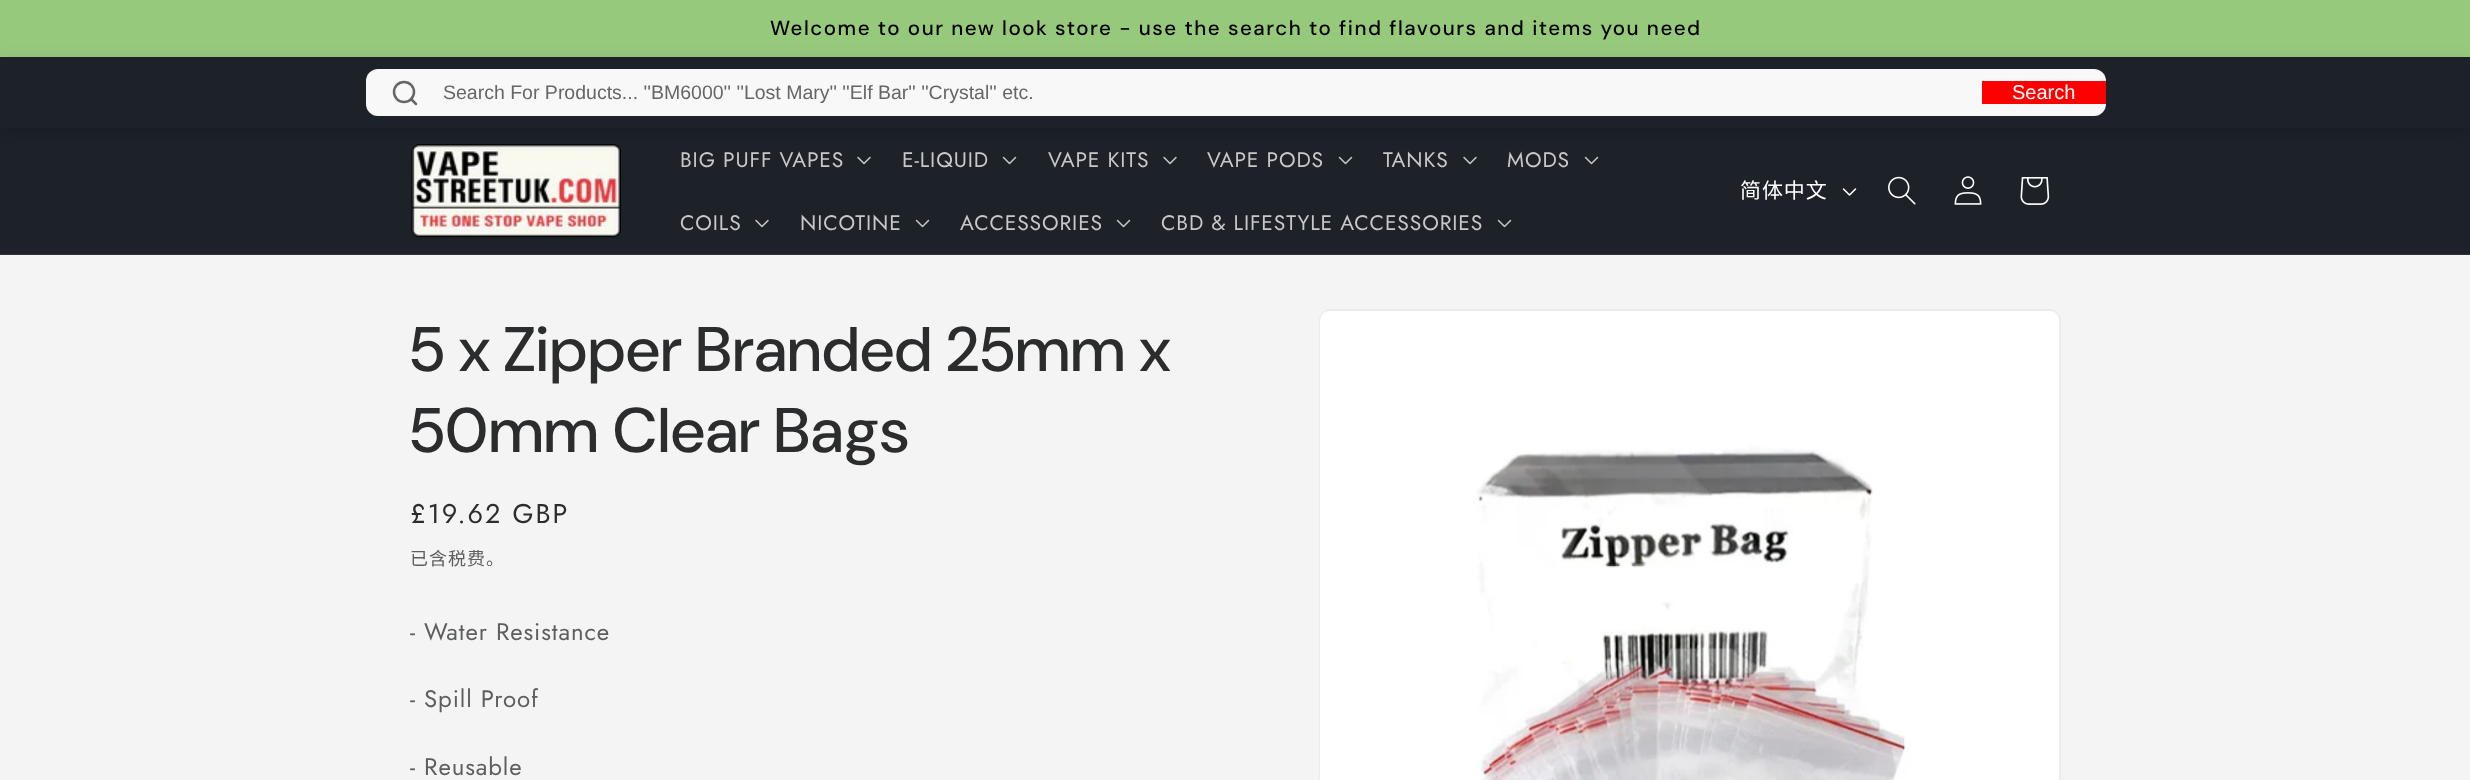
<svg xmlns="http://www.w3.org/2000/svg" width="2470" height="780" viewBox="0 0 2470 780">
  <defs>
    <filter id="blur1" x="-50%" y="-200%" width="200%" height="500%"><feGaussianBlur stdDeviation="9"/></filter>
  </defs>
  <rect width="100%" height="100%" fill="#f4f4f4"/>
  <rect x="0" y="0" width="2470" height="57" fill="#97c97c"/>
  <text x="770" y="35" font-family="'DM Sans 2'" font-size="20.5" font-weight="500" letter-spacing="1.5" fill="#000000">Welcome to our new look store - use the search to find flavours and items you need</text>
  <rect x="0" y="128" width="2470" height="126" fill="#1c2228"/>
  <image x="411" y="144" width="210" height="94" href="img1.png"/>
  <image x="857" y="156" width="14" height="9" href="img2.png"/>
  <image x="1002" y="156" width="15" height="9" href="img3.png"/>
  <image x="1163" y="156" width="14" height="9" href="img2.png"/>
  <image x="1338" y="156" width="15" height="9" href="img3.png"/>
  <image x="1463" y="156" width="14" height="9" href="img2.png"/>
  <image x="1584" y="156" width="15" height="9" href="img3.png"/>
  <rect x="0" y="63" width="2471" height="71" fill="#000000" fill-opacity="0.15" filter="url(#blur1)"/>
  <rect x="0" y="57" width="2470" height="71" fill="#1c2228"/>
  <rect x="366" y="69" width="1740" height="47" rx="12" fill="#f8f8f8"/>
  <circle cx="404" cy="92" r="10" fill="none" stroke="#666666" stroke-width="2.5"/>
  <path d="M416 104L411 99" fill="none" stroke="#666666" stroke-width="2.5" stroke-linecap="round" stroke-linejoin="round"/>
  <text x="443" y="99" font-family="Liberation Sans" font-size="19.5" fill="#666666">Search For Products... ''BM6000'' ''Lost Mary'' ''Elf Bar'' ''Crystal'' etc.</text>
  <rect x="1982" y="81" width="124" height="23" fill="#ff0000"/>
  <text x="2012" y="99" font-family="Liberation Sans" font-size="20" fill="#ffffff">Search</text>
  <rect x="0" y="254" width="2470" height="1" fill="#2e3439"/>
  <text x="680" y="167" font-family="Jost" font-size="21" letter-spacing="0.9" fill="#c6c8c9">BIG PUFF VAPES</text>
  <text x="902" y="167" font-family="Jost" font-size="21" letter-spacing="0.9" fill="#c6c8c9">E-LIQUID</text>
  <text x="1048" y="167" font-family="Jost" font-size="21" letter-spacing="0.9" fill="#c6c8c9">VAPE KITS</text>
  <text x="1207" y="167" font-family="Jost" font-size="21" letter-spacing="0.9" fill="#c6c8c9">VAPE PODS</text>
  <text x="1383" y="167" font-family="Jost" font-size="21" letter-spacing="0.9" fill="#c6c8c9">TANKS</text>
  <text x="1507" y="167" font-family="Jost" font-size="21" letter-spacing="0.9" fill="#c6c8c9">MODS</text>
  <text x="680" y="230" font-family="Jost" font-size="21" letter-spacing="0.9" fill="#c6c8c9">COILS</text>
  <image x="755" y="219" width="14" height="9" href="img2.png"/>
  <text x="800" y="230" font-family="Jost" font-size="21" letter-spacing="0.9" fill="#c6c8c9">NICOTINE</text>
  <image x="915" y="219" width="15" height="9" href="img3.png"/>
  <text x="960" y="230" font-family="Jost" font-size="21" letter-spacing="0.9" fill="#c6c8c9">ACCESSORIES</text>
  <image x="1116" y="219" width="15" height="9" href="img3.png"/>
  <text x="1161" y="230" font-family="Jost" font-size="21" letter-spacing="0.9" fill="#c6c8c9">CBD &amp; LIFESTYLE ACCESSORIES</text>
  <image x="1497" y="219" width="15" height="9" href="img3.png"/>
  <text x="1740" y="198" font-family="Noto Sans CJK SC" font-size="21" letter-spacing="0.9" fill="#ffffff">简体中文</text>
  <image x="1842" y="188" width="15" height="8" href="img4.png"/>
  <image x="1888" y="176" width="28" height="29" href="img5.png"/>
  <image x="1954" y="176" width="28" height="29" href="img6.png"/>
  <image x="2020" y="177" width="30" height="28" href="img7.png"/>
  <text x="410" y="371" font-family="DM Sans" font-size="63" font-weight="500" letter-spacing="0.95" fill="#2b2c2d">5 x Zipper Branded 25mm x</text>
  <text x="410" y="452" font-family="DM Sans" font-size="63" font-weight="500" letter-spacing="0.95" fill="#2b2c2d">50mm Clear Bags</text>
  <text x="410" y="523" font-family="Jost" font-size="27" letter-spacing="2" fill="#2b2c2d">£19.62 GBP</text>
  <text x="410" y="565" font-family="Noto Sans CJK SC" font-size="18" letter-spacing="1" fill="#5d5e5f">已含税费。</text>
  <text x="410" y="640" font-family="Jost" font-size="24" letter-spacing="0.9" fill="#5d5e5f">- Water Resistance</text>
  <text x="410" y="707" font-family="Jost" font-size="24" letter-spacing="0.9" fill="#5d5e5f">- Spill Proof</text>
  <text x="410" y="775" font-family="Jost" font-size="24" letter-spacing="0.9" fill="#5d5e5f">- Reusable</text>
  <rect x="1320" y="310" width="740" height="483" rx="11" fill="none" stroke="#eaeaea" stroke-width="2"/>
  <image x="1320" y="311" width="740" height="469" href="img8.png"/>
</svg>
